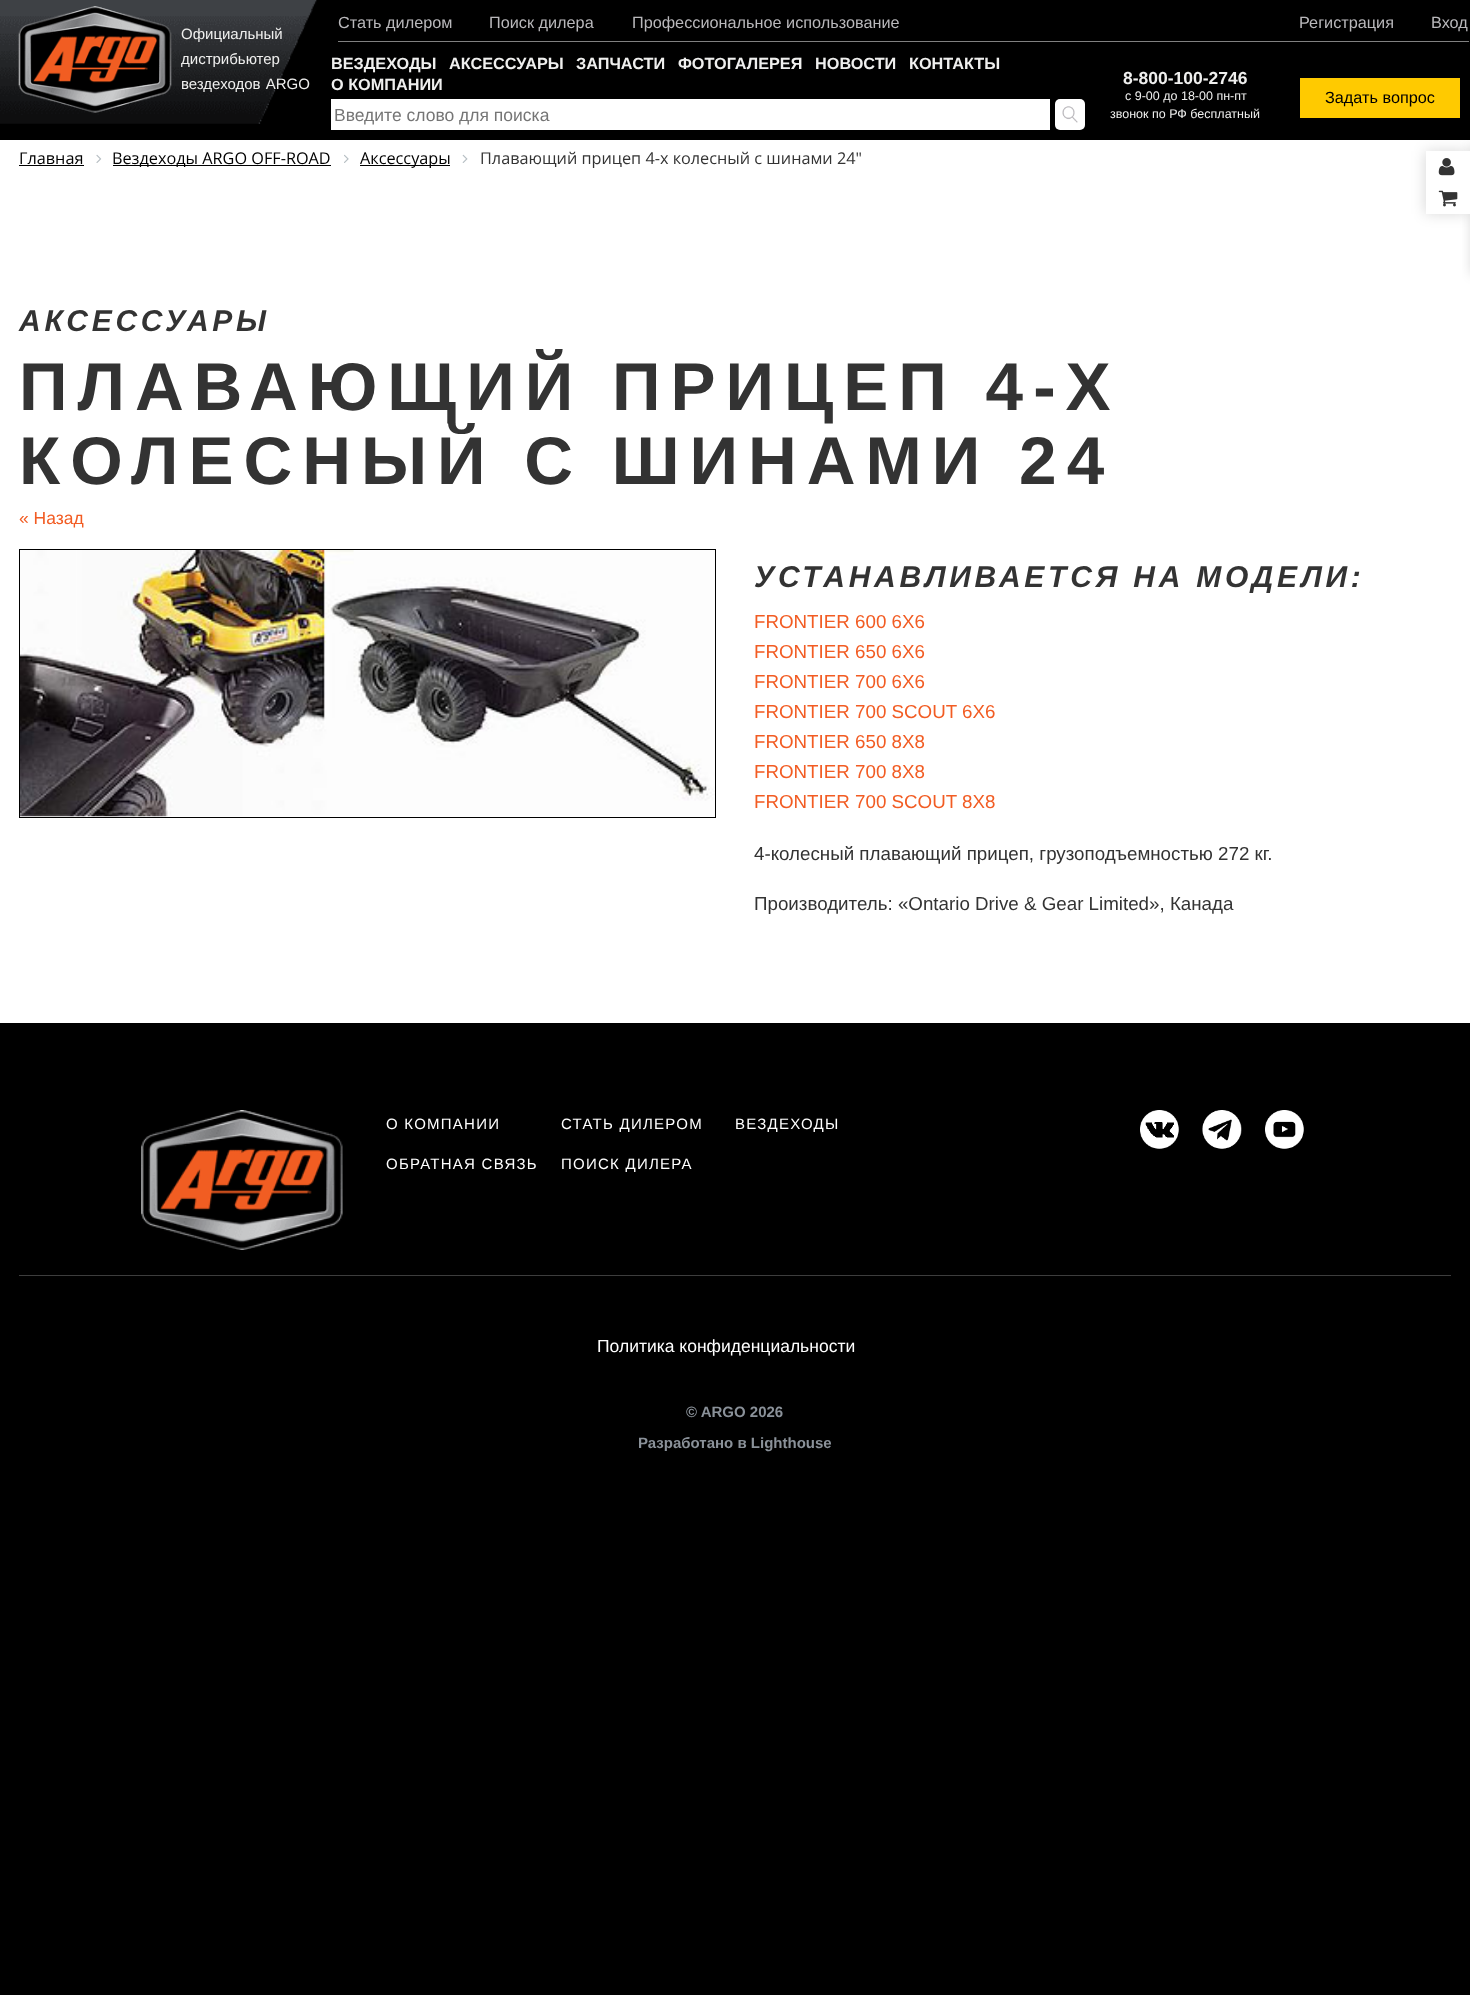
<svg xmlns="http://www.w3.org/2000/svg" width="1470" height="1995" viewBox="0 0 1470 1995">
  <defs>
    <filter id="blur1" x="-50%" y="-200%" width="200%" height="500%"><feGaussianBlur stdDeviation="6"/></filter>
    <filter id="blur2" x="-50%" y="-200%" width="200%" height="500%"><feGaussianBlur stdDeviation="7"/></filter>
  </defs>
  <rect width="100%" height="100%" fill="#000000"/>
  <image x="0" y="0" width="317" height="124" href="img1.png"/>
  <image x="18" y="6" width="154" height="107" href="img2.png"/>
  <text x="181" y="39" font-family="Liberation Sans" font-size="15" fill="#efefee">Официальный</text>
  <text x="181" y="64" font-family="Liberation Sans" font-size="15" fill="#efefee">дистрибьютер</text>
  <text x="181" y="89" word-spacing="1" font-family="Liberation Sans" font-size="15" fill="#efefee">вездеходов ARGO</text>
  <rect x="338" y="41" width="1131" height="1" fill="#808080"/>
  <text x="338" y="28" font-family="Liberation Sans" font-size="16.25" fill="#b9b8bb">Стать дилером</text>
  <text x="489" y="28" font-family="Liberation Sans" font-size="16.25" fill="#b9b8bb">Поиск дилера</text>
  <text x="632" y="28" font-family="Liberation Sans" font-size="16.25" fill="#b9b8bb">Профессиональное использование</text>
  <text x="1299" y="28" font-family="Liberation Sans" font-size="16.25" fill="#b9b8bb">Регистрация</text>
  <text x="1431" y="28" font-family="Liberation Sans" font-size="16.25" fill="#b9b8bb">Вход</text>
  <text x="331" y="69" font-family="Liberation Sans" font-size="16.25" font-weight="bold" fill="#efefee">ВЕЗДЕХОДЫ</text>
  <text x="449" y="69" font-family="Liberation Sans" font-size="16.25" font-weight="bold" fill="#efefee">АКСЕССУАРЫ</text>
  <text x="576" y="69" font-family="Liberation Sans" font-size="16.25" font-weight="bold" fill="#efefee">ЗАПЧАСТИ</text>
  <text x="678" y="69" font-family="Liberation Sans" font-size="16.25" font-weight="bold" fill="#efefee">ФОТОГАЛЕРЕЯ</text>
  <text x="815" y="69" font-family="Liberation Sans" font-size="16.25" font-weight="bold" fill="#efefee">НОВОСТИ</text>
  <text x="909" y="69" font-family="Liberation Sans" font-size="16.25" font-weight="bold" fill="#efefee">КОНТАКТЫ</text>
  <text x="331" y="90" font-family="Liberation Sans" font-size="16.25" font-weight="bold" fill="#efefee">О КОМПАНИИ</text>
  <rect x="331" y="99" width="719" height="31" fill="#ffffff"/>
  <text x="334" y="121" font-family="Liberation Sans" font-size="17.5" fill="#757575">Введите слово для поиска</text>
  <rect x="1055" y="99" width="30" height="31" rx="5" fill="#ffffff"/>
  <image x="1062" y="106" width="16" height="17" href="img3.png"/>
  <text x="1123" y="84" font-family="Liberation Sans" font-size="17.5" font-weight="bold" fill="#efefee">8-800-100-2746</text>
  <text x="1125" y="100" font-family="Liberation Sans" font-size="12.5" fill="#efefee">с 9-00 до 18-00 пн-пт</text>
  <text x="1110" y="118" font-family="Liberation Sans" font-size="12.5" fill="#efefee">звонок по РФ бесплатный</text>
  <rect x="1300" y="78" width="160" height="40" fill="#ffca00"/>
  <text x="1325" y="103" font-family="Liberation Sans" font-size="16.25" fill="#000000">Задать вопрос</text>
  <rect x="0" y="140" width="1470" height="883" fill="#ffffff"/>
  <rect x="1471" y="146" width="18" height="128" rx="1" fill="#000000" fill-opacity="0.15" filter="url(#blur1)"/>
  <rect x="1425" y="151" width="44" height="63" fill="#000000" fill-opacity="0.15" filter="url(#blur2)"/>
  <rect x="1426" y="151" width="44" height="63" fill="#ffffff"/>
  <image x="1438" y="158" width="17" height="18" href="img4.png"/>
  <image x="1438" y="190" width="20" height="17" href="img5.png"/>
  <text x="19" y="164" font-family="Open Sans" font-size="16.25" fill="#000000">Главная</text>
  <rect x="19" y="165" width="65" height="1" fill="#000000"/>
  <image x="96" y="154" width="6" height="9" href="img6.png"/>
  <rect x="113" y="165" width="218" height="1" fill="#000000"/>
  <text x="112" y="164" font-family="Open Sans" font-size="16.25" fill="#000000">Вездеходы ARGO OFF-ROAD</text>
  <image x="344" y="154" width="5" height="9" href="img7.png"/>
  <rect x="360" y="165" width="90" height="1" fill="#000000"/>
  <text x="360" y="164" font-family="Open Sans" font-size="16.25" fill="#000000">Аксессуары</text>
  <image x="462" y="154" width="6" height="9" href="img8.png"/>
  <text x="480" y="164" font-family="Open Sans" font-size="16.25" fill="#333333">Плавающий прицеп 4-х колесный с шинами 24"</text>
  <text x="19" y="331" font-family="Liberation Sans" font-size="30" font-weight="bold" font-style="italic" letter-spacing="3.75" fill="#333333">АКСЕССУАРЫ</text>
  <text x="19" y="410" font-family="Liberation Sans" font-size="67.5" font-weight="bold" letter-spacing="10" fill="#333333">ПЛАВАЮЩИЙ ПРИЦЕП 4-Х</text>
  <text x="19" y="484" font-family="Liberation Sans" font-size="67.5" font-weight="bold" letter-spacing="10" fill="#333333">КОЛЕСНЫЙ С ШИНАМИ 24</text>
  <text x="19" y="524" font-family="Liberation Sans" font-size="17.5" fill="#f25c23">« Назад</text>
  <rect x="19.5" y="549.5" width="696" height="268" fill="none" stroke="#000000"/>
  <image x="20" y="550" width="695" height="267" href="img9.png"/>
  <text x="754" y="587" font-family="Liberation Sans" font-size="30" font-weight="bold" font-style="italic" letter-spacing="3.75" fill="#333333">УСТАНАВЛИВАЕТСЯ НА МОДЕЛИ:</text>
  <text x="754" y="628" font-family="Liberation Sans" font-size="18.75" fill="#f25c23">FRONTIER 600 6X6</text>
  <text x="754" y="658" font-family="Liberation Sans" font-size="18.75" fill="#f25c23">FRONTIER 650 6X6</text>
  <text x="754" y="688" font-family="Liberation Sans" font-size="18.75" fill="#f25c23">FRONTIER 700 6X6</text>
  <text x="754" y="718" font-family="Liberation Sans" font-size="18.75" fill="#f25c23">FRONTIER 700 SCOUT 6X6</text>
  <text x="754" y="748" font-family="Liberation Sans" font-size="18.75" fill="#f25c23">FRONTIER 650 8X8</text>
  <text x="754" y="778" font-family="Liberation Sans" font-size="18.75" fill="#f25c23">FRONTIER 700 8X8</text>
  <text x="754" y="808" font-family="Liberation Sans" font-size="18.75" fill="#f25c23">FRONTIER 700 SCOUT 8X8</text>
  <text x="754" y="860" font-family="Liberation Sans" font-size="18.75" fill="#333333">4-колесный плавающий прицеп, грузоподъемностью 272 кг.</text>
  <text x="754" y="910" font-family="Liberation Sans" font-size="18.75" fill="#333333">Производитель: «Ontario Drive &amp; Gear Limited», Канада</text>
  <image x="141" y="1110" width="202" height="140" href="img10.png"/>
  <text x="386" y="1129" font-family="Liberation Sans" font-size="15" letter-spacing="1.25" fill="#ffffff">О КОМПАНИИ</text>
  <text x="561" y="1129" font-family="Liberation Sans" font-size="15" letter-spacing="1.25" fill="#ffffff">СТАТЬ ДИЛЕРОМ</text>
  <text x="735" y="1129" font-family="Liberation Sans" font-size="15" letter-spacing="1.25" fill="#ffffff">ВЕЗДЕХОДЫ</text>
  <text x="386" y="1169" font-family="Liberation Sans" font-size="15" letter-spacing="1.25" fill="#ffffff">ОБРАТНАЯ СВЯЗЬ</text>
  <text x="561" y="1169" font-family="Liberation Sans" font-size="15" letter-spacing="1.25" fill="#ffffff">ПОИСК ДИЛЕРА</text>
  <image x="1140" y="1110" width="39" height="39" href="img11.png"/>
  <image x="1202" y="1110" width="40" height="39" href="img12.png"/>
  <image x="1265" y="1110" width="39" height="39" href="img13.png"/>
  <rect x="19" y="1275" width="1432" height="1" fill="#3d3d3d"/>
  <text x="597" y="1352" font-family="Liberation Sans" font-size="17.5" fill="#ffffff">Политика конфиденциальности</text>
  <text x="686" y="1417" font-family="Liberation Sans" font-size="15" font-weight="bold" fill="#8a9199">© ARGO 2026</text>
  <text x="638" y="1448" font-family="Liberation Sans" font-size="15" font-weight="bold" fill="#8a9199">Разработано в Lighthouse</text>
</svg>
